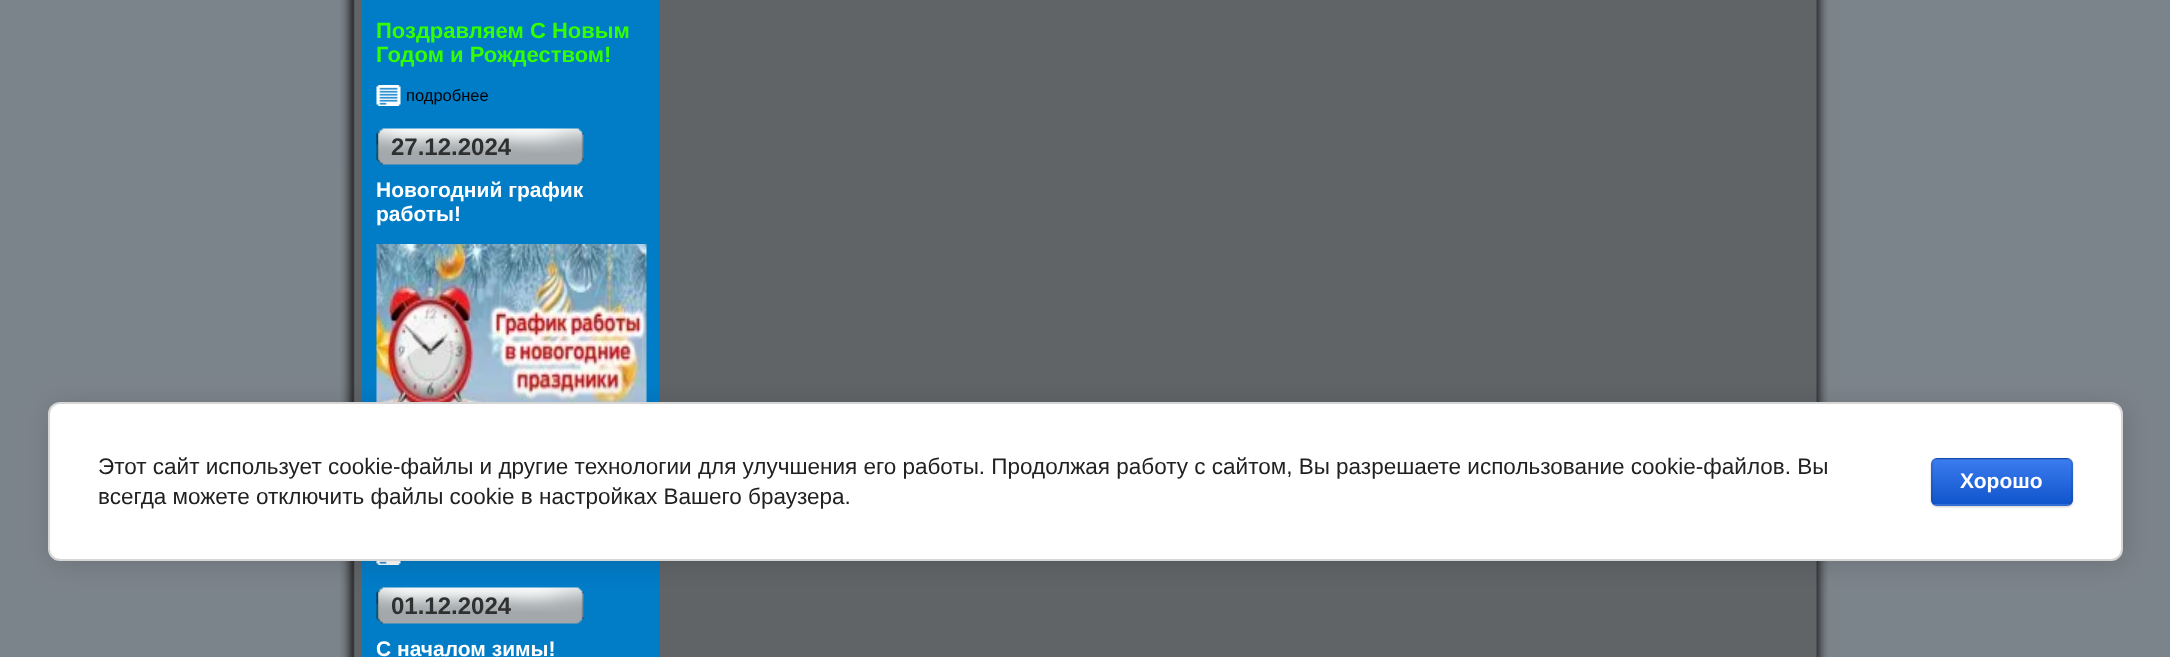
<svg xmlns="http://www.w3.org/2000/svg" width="2170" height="657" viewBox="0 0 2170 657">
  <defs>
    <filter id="blur1" x="-50%" y="-200%" width="200%" height="500%"><feGaussianBlur stdDeviation="13.5"/></filter>
    <filter id="blur2" x="-50%" y="-200%" width="200%" height="500%"><feGaussianBlur stdDeviation="1"/></filter>
    <clipPath id="clip1"><rect x="1931" y="458" width="142" height="48" rx="6"/></clipPath>
    <linearGradient id="g1" gradientUnits="userSpaceOnUse" x1="2002" y1="414" x2="2002" y2="459"><stop offset="0" stop-color="#3b7cef"/><stop offset="1" stop-color="#1155cc"/></linearGradient>
    <linearGradient id="g2" gradientUnits="userSpaceOnUse" x1="2002" y1="459" x2="2002" y2="504"><stop offset="0" stop-color="#3b7cef"/><stop offset="1" stop-color="#1155cc"/></linearGradient>
    <linearGradient id="g3" gradientUnits="userSpaceOnUse" x1="2002" y1="504" x2="2002" y2="549"><stop offset="0" stop-color="#3b7cef"/><stop offset="1" stop-color="#1155cc"/></linearGradient>
  </defs>
  <rect width="100%" height="100%" fill="#7c848b"/>
  <image x="340" y="0" width="1488" height="657" href="img1.png"/>
  <rect x="362" y="0" width="298" height="657" fill="#017cc7"/>
  <text x="376" y="38" font-family="Liberation Sans" font-size="22" font-weight="bold" fill="#33ff00">Поздравляем С Новым</text>
  <text x="376" y="62" font-family="Liberation Sans" font-size="22" font-weight="bold" fill="#33ff00">Годом и Рождеством!</text>
  <image x="376" y="85" width="25" height="21" href="img2.png"/>
  <text x="406" y="101" font-family="Liberation Sans" font-size="16.5" fill="#000000">подробнее</text>
  <image x="376" y="128" width="208" height="37" href="img3.png"/>
  <text x="391" y="155" font-family="Liberation Sans" font-size="24" font-weight="bold" fill="#2f3030">27.12.2024</text>
  <text x="376" y="197" font-family="Liberation Sans" font-size="21" font-weight="bold" fill="#ffffff">Новогодний график</text>
  <text x="376" y="221" font-family="Liberation Sans" font-size="21" font-weight="bold" fill="#ffffff">работы!</text>
  <image x="376" y="244" width="271" height="158" href="img4.png"/>
  <image x="376" y="561" width="25" height="4" href="img5.png"/>
  <image x="376" y="587" width="208" height="37" href="img3.png"/>
  <text x="391" y="614" font-family="Liberation Sans" font-size="24" font-weight="bold" fill="#2f3030">01.12.2024</text>
  <text x="376" y="656" font-family="Liberation Sans" font-size="21" font-weight="bold" fill="#ffffff">С началом зимы!</text>
  <rect x="51" y="405" width="2075" height="159" rx="12" fill="#000000" fill-opacity="0.14" filter="url(#blur1)"/>
  <rect x="49" y="403" width="2073" height="157" rx="11" fill="#ffffff" stroke="#d6d6d6" stroke-width="2"/>
  <text x="98" y="474" font-family="Liberation Sans" font-size="22.5" fill="#212121">Этот сайт использует cookie-файлы и другие технологии для улучшения его работы. Продолжая работу с сайтом, Вы разрешаете использование cookie-файлов. Вы</text>
  <text x="98" y="504" font-family="Liberation Sans" font-size="22.5" fill="#212121">всегда можете отключить файлы cookie в настройках Вашего браузера.</text>
  <rect x="1931" y="459" width="142" height="48" rx="6" fill="#000000" fill-opacity="0.2" filter="url(#blur2)"/>
  <g clip-path="url(#clip1)">
    <rect x="1931" y="458" width="142" height="1" fill="url(#g1)"/>
    <rect x="1931" y="459" width="142" height="45" fill="url(#g2)"/>
    <rect x="1931" y="504" width="142" height="2" fill="url(#g3)"/>
  </g>
  <rect x="1932" y="459" width="140" height="46" rx="5" fill="none" stroke="#000000" stroke-opacity="0.1" stroke-width="2"/>
  <text x="1960" y="488" font-family="Liberation Sans" font-size="21" font-weight="bold" fill="#ffffff">Хорошо</text>
</svg>
